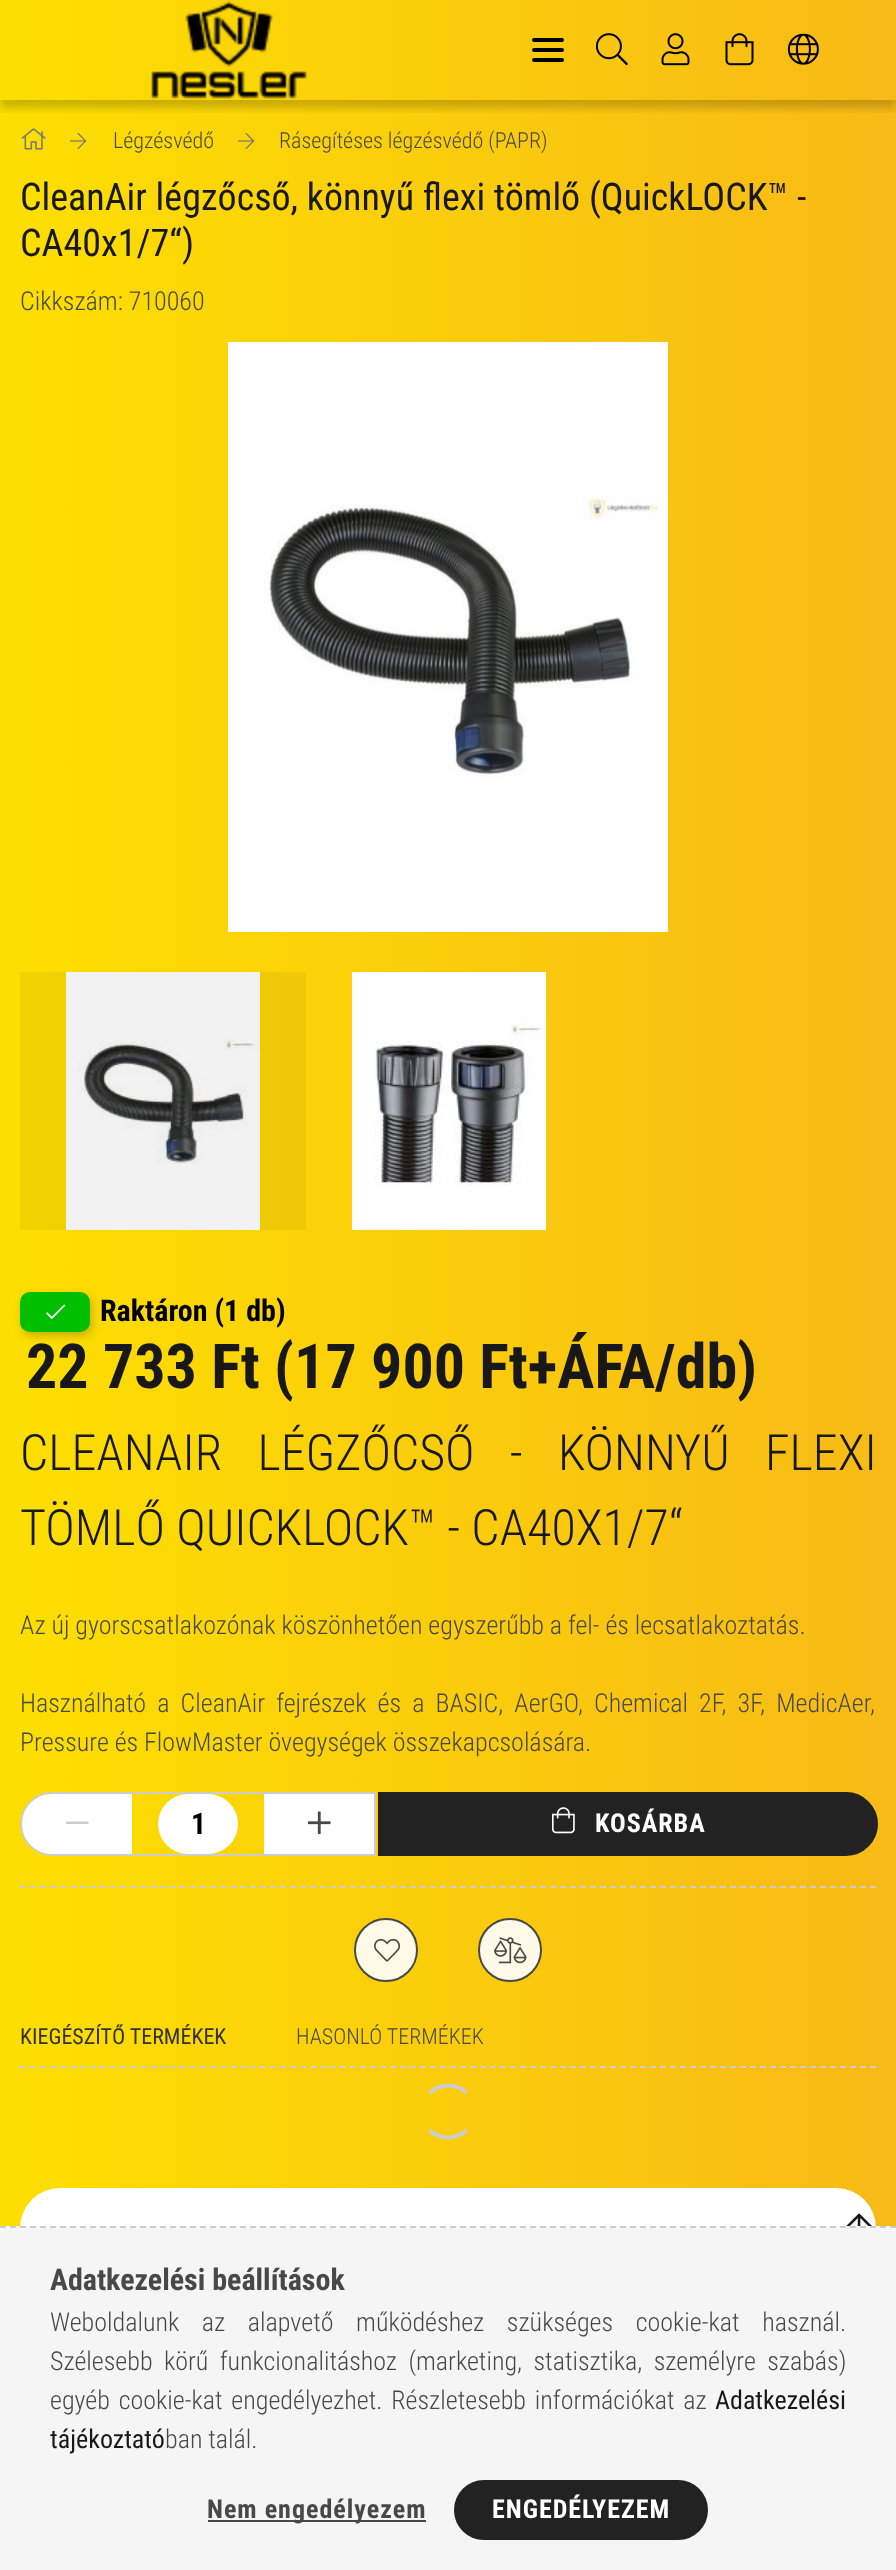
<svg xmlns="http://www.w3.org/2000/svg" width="896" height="2570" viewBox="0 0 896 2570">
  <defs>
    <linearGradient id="g1" gradientUnits="userSpaceOnUse" x1="0" y1="1913" x2="896" y2="1913"><stop offset="0" stop-color="#fddf00"/><stop offset="1" stop-color="#f8ba17"/></linearGradient>
    <linearGradient id="g2" gradientUnits="userSpaceOnUse" x1="0" y1="1913" x2="896" y2="1913"><stop offset="0" stop-color="#f0d400"/><stop offset="1" stop-color="#ecb116"/></linearGradient>
    <clipPath id="clip1"><rect x="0" y="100" width="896" height="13"/></clipPath>
    <filter id="blur1" x="-50%" y="-200%" width="200%" height="500%"><feGaussianBlur stdDeviation="4"/></filter>
  </defs>
  <rect width="100%" height="100%" fill="#ffffff"/>
  <rect x="0" y="0" width="896" height="2226" fill="url(#g1)"/>
  <rect x="20" y="972" width="286" height="258" fill="url(#g2)"/>
  <g clip-path="url(#clip1)">
    <rect x="0" y="8" width="896" height="100" fill="#000000" fill-opacity="0.2" filter="url(#blur1)"/>
  </g>
  <image x="151" y="1" width="156" height="98" href="img1.png"/>
  <rect x="532" y="38" width="32" height="4" rx="2" fill="#000000"/>
  <rect x="532" y="48" width="32" height="4" rx="2" fill="#000000"/>
  <rect x="532" y="58" width="32" height="4" rx="2" fill="#000000"/>
  <image x="595" y="33" width="33" height="33" href="img2.png"/>
  <image x="661" y="33" width="29" height="33" href="img3.png"/>
  <image x="725" y="33" width="29" height="33" href="img4.png"/>
  <image x="787" y="33" width="32" height="32" href="img5.png"/>
  <image x="21" y="128" width="25" height="22" href="img6.png"/>
  <image x="70" y="132" width="17" height="18" href="img7.png"/>
  <text x="113" y="148" font-family="Roboto Condensed" font-size="22" font-weight="300" fill="#484848">Légzésvédő</text>
  <image x="238" y="132" width="17" height="18" href="img8.png"/>
  <text x="279" y="148" font-family="Roboto Condensed" font-size="22" font-weight="300" fill="#484848">Rásegítéses légzésvédő (PAPR)</text>
  <text x="20" y="210" font-family="Roboto Condensed" font-size="38" fill="#181818">CleanAir légzőcső, könnyű flexi tömlő (QuickLOCK™ -</text>
  <text x="20" y="256" font-family="Roboto Condensed" font-size="38" fill="#181818">CA40x1/7“)</text>
  <text x="20" y="310" font-family="Roboto Condensed" font-size="26" font-weight="300" fill="#484848">Cikkszám: 710060</text>
  <image x="228" y="342" width="440" height="590" href="img9.png"/>
  <image x="66" y="972" width="194" height="258" href="img10.png"/>
  <image x="352" y="972" width="194" height="258" href="img11.png"/>
  <rect x="22" y="1296" width="70" height="40" rx="10" fill="#000000" fill-opacity="0.2" filter="url(#blur1)"/>
  <rect x="20" y="1292" width="70" height="40" rx="10" fill="#00be00"/>
  <image x="46" y="1304" width="20" height="15" href="img12.png"/>
  <text x="100" y="1321" font-family="Roboto Condensed" font-size="30" font-weight="bold" fill="#000000">Raktáron (1 db)</text>
  <text x="26" y="1388" font-family="Roboto Condensed" font-size="62" font-weight="bold" fill="#181818">22 733 Ft (17 900 Ft+ÁFA/db)</text>
  <text x="20" y="1470" word-spacing="24" font-family="Roboto Condensed" font-size="50" font-weight="300" fill="#181818">CLEANAIR LÉGZŐCSŐ - KÖNNYŰ FLEXI</text>
  <text x="20" y="1545" font-family="Roboto Condensed" font-size="50" font-weight="300" fill="#181818">TÖMLŐ QUICKLOCK™ - CA40X1/7“</text>
  <text x="20" y="1634" font-family="Roboto Condensed" font-size="26" font-weight="300" fill="#484848">Az új gyorscsatlakozónak köszönhetően egyszerűbb a fel- és lecsatlakoztatás.</text>
  <text x="20" y="1712" word-spacing="5.25" font-family="Roboto Condensed" font-size="26" font-weight="300" fill="#484848">Használható a CleanAir fejrészek és a BASIC, AerGO, Chemical 2F, 3F, MedicAer,</text>
  <text x="20" y="1751" font-family="Roboto Condensed" font-size="26" font-weight="300" fill="#484848">Pressure és FlowMaster övegységek összekapcsolására.</text>
  <path d="M52 1793H375V1855H52C35 1855 21 1841 21 1824C21 1807 35 1793 52 1793Z" fill="none" stroke="#cccccc" stroke-width="2"/>
  <path d="M52 1794H132V1854H52C35.5 1854 22 1840.5 22 1824C22 1807.5 35.5 1794 52 1794Z" fill="#ffffff"/>
  <path d="M88 1821.5C89 1821.5 89 1824 88 1824H66V1822V1821.5Z" fill="#cccccc"/>
  <rect x="158" y="1794" width="80" height="60" rx="30" fill="#ffffff"/>
  <text x="191" y="1834" font-family="Roboto Condensed" font-size="30" font-weight="bold" fill="#000000">1</text>
  <rect x="264" y="1794" width="110" height="60" fill="#ffffff"/>
  <image x="308" y="1811" width="23" height="23" href="img13.png"/>
  <path d="M379 1793H846C863 1793 877 1807 877 1824C877 1841 863 1855 846 1855H379Z" fill="#222222" stroke="#222222" stroke-width="2"/>
  <image x="552" y="1807" width="23" height="27" href="img14.png"/>
  <text x="595" y="1832" font-family="Roboto Condensed" font-size="26" font-weight="bold" letter-spacing="1" fill="#ffffff">KOSÁRBA</text>
  <path d="M20 1887H876" fill="none" stroke="#cccccc" stroke-width="2" stroke-dasharray="6 4"/>
  <circle cx="386" cy="1950" r="31" fill="#fffae6" stroke="#484848" stroke-width="2"/>
  <image x="374" y="1938" width="27" height="24" href="img15.png"/>
  <circle cx="510" cy="1950" r="31" fill="#fffae7" stroke="#484848" stroke-width="2"/>
  <image x="494" y="1937" width="33" height="27" href="img16.png"/>
  <path d="M20 2067H876" fill="none" stroke="#cccccc" stroke-width="2" stroke-dasharray="6 4"/>
  <text x="20" y="2044" font-family="Roboto Condensed" font-size="22" fill="#333333">KIEGÉSZÍTŐ TERMÉKEK</text>
  <text x="296" y="2044" font-family="Roboto Condensed" font-size="22" font-weight="300" fill="#484848">HASONLÓ TERMÉKEK</text>
  <path d="M429.5 2093C439.5 2083 456.5 2083 466.5 2093M466.5 2130C456.5 2140 439.5 2140 429.5 2130" fill="none" stroke="#cccccc" stroke-width="4"/>
  <rect x="20" y="2188" width="856" height="82" rx="40" fill="#ffffff"/>
  <image x="846" y="2213" width="26" height="13" href="img17.png"/>
  <rect x="0" y="2226" width="896" height="344" fill="#f5f5f5"/>
  <path d="M0 2227H896" fill="none" stroke="#cccccc" stroke-width="2" stroke-dasharray="6 4"/>
  <text x="50" y="2290" font-family="Roboto Condensed" font-size="30" font-weight="bold" fill="#484848">Adatkezelési beállítások</text>
  <text x="50" y="2331" word-spacing="16.75" font-family="Roboto Condensed" font-size="26" font-weight="300" fill="#484848">Weboldalunk az alapvető működéshez szükséges cookie-kat használ.</text>
  <text x="50" y="2370" word-spacing="5.5" font-family="Roboto Condensed" font-size="26" font-weight="300" fill="#484848">Szélesebb körű funkcionalitáshoz (marketing, statisztika, személyre szabás)</text>
  <text x="50" y="2409" word-spacing="3" font-family="Roboto Condensed" font-size="26" font-weight="300" fill="#484848">egyéb cookie-kat engedélyezhet. Részletesebb információkat az</text>
  <text x="715" y="2409" font-family="Roboto Condensed" font-size="26" fill="#181818">Adatkezelési</text>
  <text x="50" y="2448" font-family="Roboto Condensed" font-size="26" fill="#181818">tájékoztató</text>
  <text x="165" y="2448" font-family="Roboto Condensed" font-size="26" font-weight="300" fill="#484848">ban talál.</text>
  <rect x="208" y="2520" width="218" height="2" fill="#484848"/>
  <text x="207" y="2518" font-family="Roboto Condensed" font-size="26" font-weight="bold" letter-spacing="1" fill="#484848">Nem engedélyezem</text>
  <rect x="455" y="2481" width="252" height="58" rx="29" fill="#222222" stroke="#222222" stroke-width="2"/>
  <text x="492" y="2518" font-family="Roboto Condensed" font-size="26" font-weight="bold" letter-spacing="1" fill="#ffffff">ENGEDÉLYEZEM</text>
</svg>
